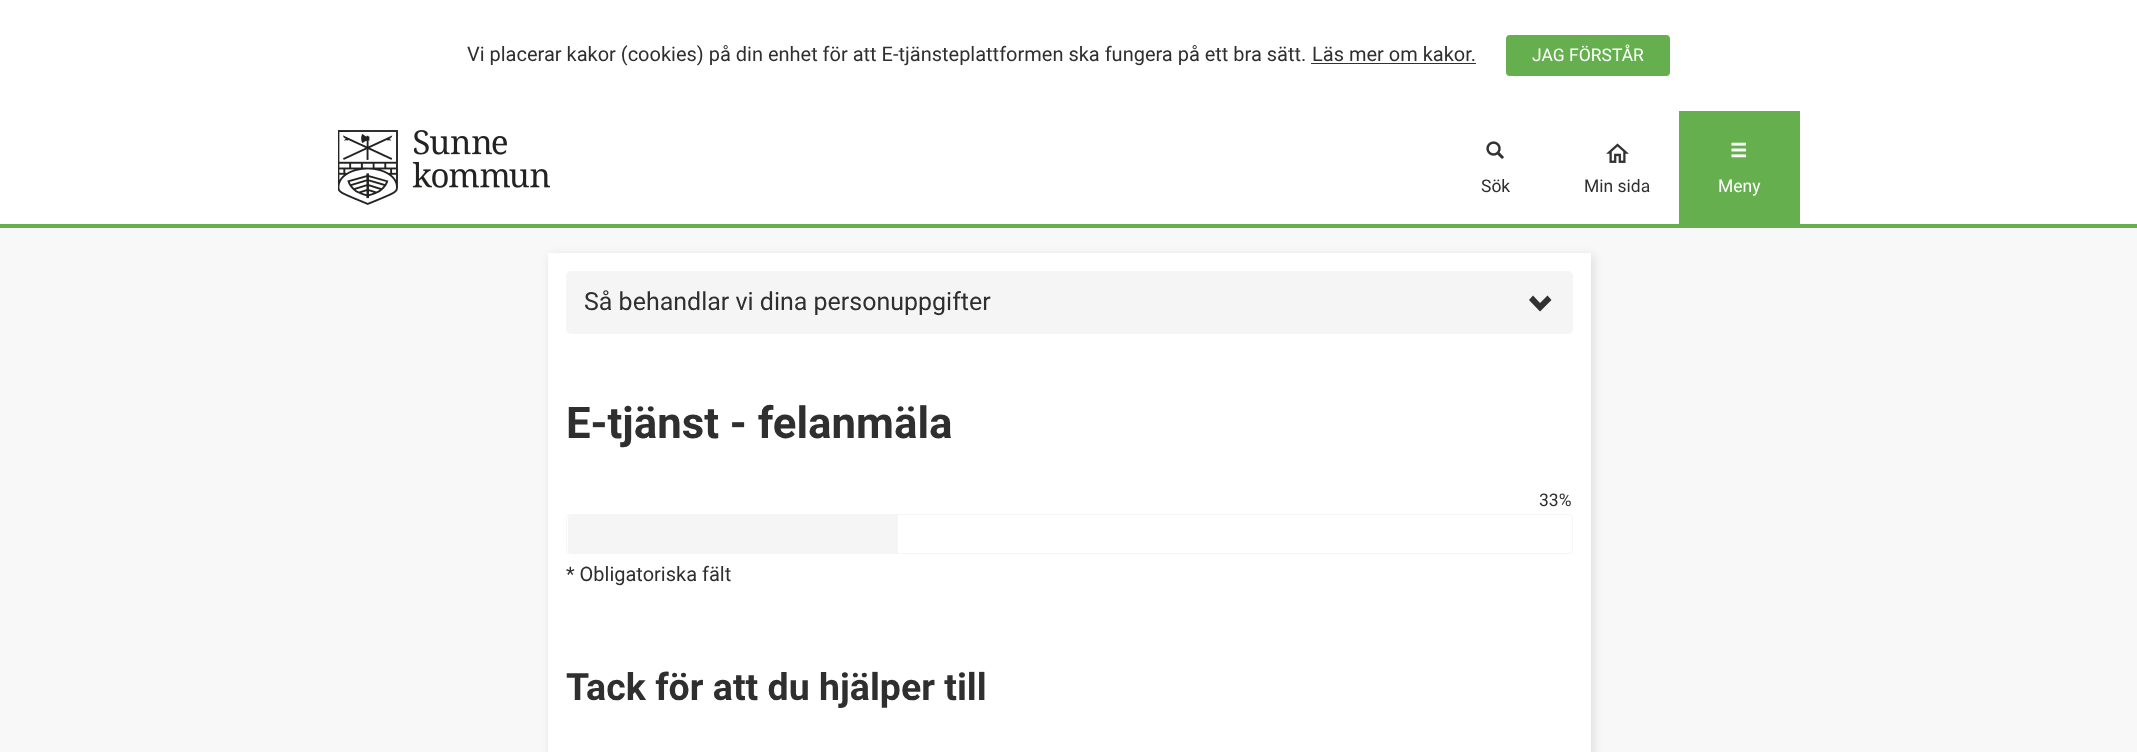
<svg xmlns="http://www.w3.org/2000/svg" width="2137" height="752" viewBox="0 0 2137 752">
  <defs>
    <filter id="blur1" x="-50%" y="-200%" width="200%" height="500%"><feGaussianBlur stdDeviation="5"/></filter>
  </defs>
  <rect width="100%" height="100%" fill="#f8f8f8"/>
  <rect x="0" y="0" width="2137" height="224" fill="#ffffff"/>
  <text x="467" y="61" font-family="Roboto" font-size="20" fill="#2f2f2f">Vi placerar kakor (cookies) på din enhet för att E-tjänsteplattformen ska fungera på ett bra sätt.</text>
  <text x="1312" y="61" font-family="Roboto" font-size="20" fill="#2f2f2f">Läs mer om kakor.</text>
  <rect x="1311" y="63" width="165" height="1" fill="#333232"/>
  <rect x="1506" y="35" width="164" height="41" rx="4" fill="#65af4f"/>
  <text x="1532" y="61" font-family="Roboto" font-size="17.5" fill="#ffffff">JAG FÖRSTÅR</text>
  <image x="338" y="130" width="212" height="75" href="img1.png"/>
  <image x="1486" y="141" width="18" height="18" href="img2.png"/>
  <text x="1481" y="192" font-family="Roboto" font-size="17.5" fill="#2f2f2f">Sök</text>
  <image x="1606" y="143" width="23" height="20" href="img3.png"/>
  <text x="1584" y="192" font-family="Roboto" font-size="17.5" fill="#2f2f2f">Min sida</text>
  <rect x="1679" y="111" width="121" height="113" fill="#65af4f"/>
  <image x="1731" y="142" width="16" height="16" href="img4.png"/>
  <text x="1718" y="192" font-family="Roboto" font-size="17.5" fill="#ffffff">Meny</text>
  <rect x="0" y="224" width="2137" height="4" fill="#65af4f"/>
  <rect x="550" y="255" width="1044" height="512" fill="#000000" fill-opacity="0.1" filter="url(#blur1)"/>
  <rect x="548" y="253" width="1043" height="499" fill="#ffffff"/>
  <rect x="566" y="271" width="1007" height="63" rx="5" fill="#f5f5f5"/>
  <text x="584" y="310" font-family="Roboto" font-size="25" fill="#2f2f2f">Så behandlar vi dina personuppgifter</text>
  <path d="M1551.5 300L1540 311.5L1529 300L1533 295.5L1540 303L1547.5 295.5Z" fill="#333232"/>
  <text x="566" y="438" font-family="Roboto" font-size="43.75" font-weight="bold" fill="#2f2f2f">E-tjänst - felanmäla</text>
  <text x="1539" y="506" font-family="Roboto" font-size="17.5" fill="#2f2f2f">33%</text>
  <rect x="566.5" y="514.5" width="1006" height="39" rx="3.5" fill="none" stroke="#f5f5f5"/>
  <path d="M570.5 515H898V553H570.5C569 553 568 552 568 550.5V517.5C568 516 569 515 570.5 515Z" fill="#f5f5f5"/>
  <text x="566" y="581" font-family="Roboto" font-size="20" fill="#2f2f2f">* Obligatoriska fält</text>
  <text x="566" y="700" font-family="Roboto" font-size="37.5" font-weight="bold" fill="#2f2f2f">Tack för att du hjälper till</text>
</svg>
